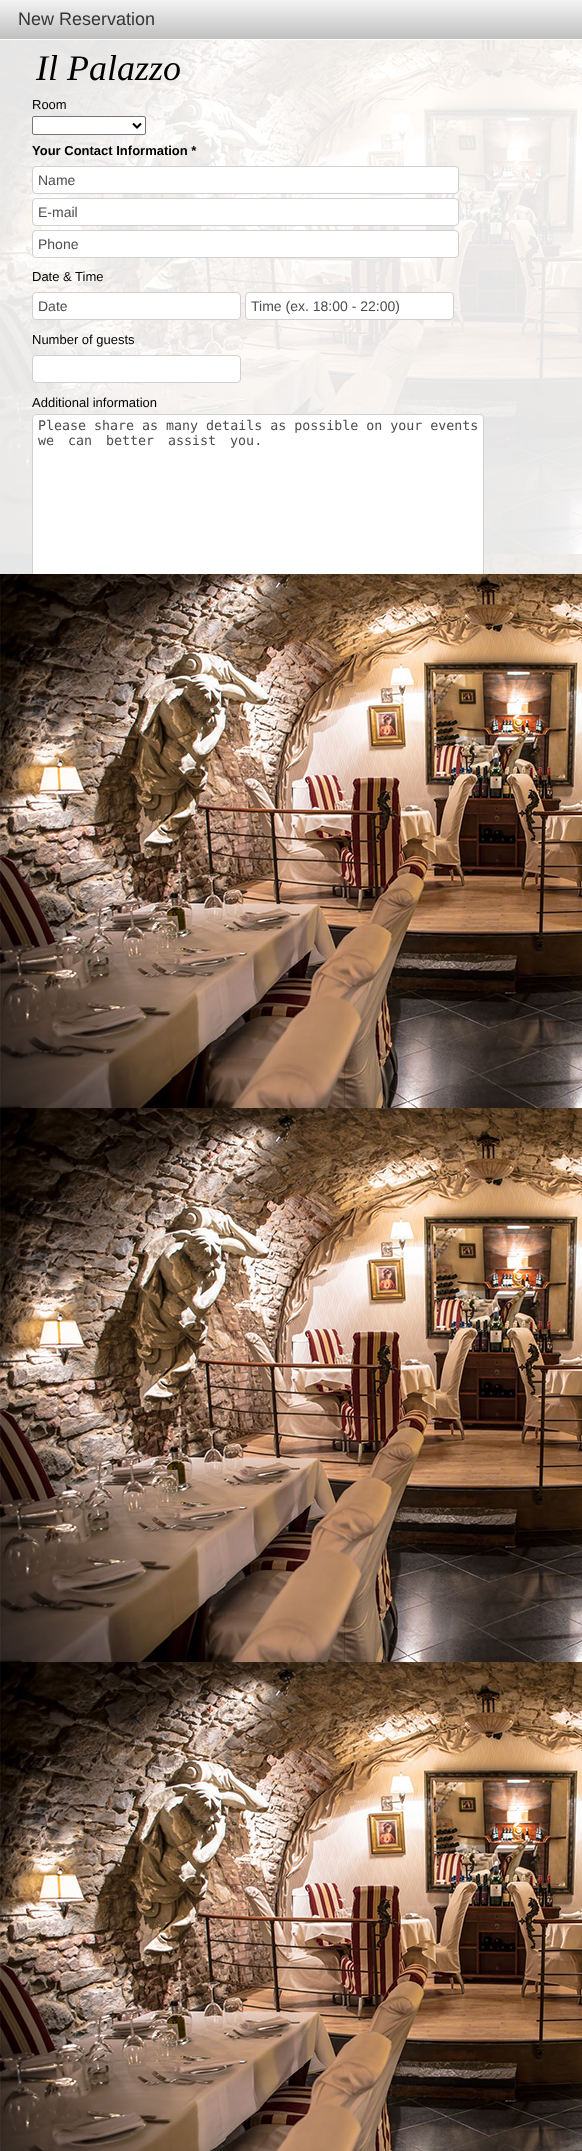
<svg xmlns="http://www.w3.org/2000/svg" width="582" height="2151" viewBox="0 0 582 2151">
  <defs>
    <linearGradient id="g1" gradientUnits="userSpaceOnUse" x1="0" y1="0" x2="0" y2="39"><stop offset="0" stop-color="#f3f3f3"/><stop offset="1" stop-color="#c0c0c0"/></linearGradient>
    <clipPath id="clip1"><rect x="0" y="89" width="582" height="485"/></clipPath>
  </defs>
  <rect width="100%" height="100%" fill="#ffffff"/>
  <image x="0" y="40" width="582" height="2111" href="img1.png"/>
  <rect x="0" y="40" width="582" height="534" fill="#ffffff" fill-opacity="0.9"/>
  <rect x="0" y="0" width="582" height="39" fill="url(#g1)"/>
  <text x="18" y="25" font-family="Liberation Sans" font-size="18" fill="#353535">New Reservation</text>
  <text x="36" y="80" font-family="Liberation Serif" font-size="36" font-style="italic" fill="#000000">Il Palazzo</text>
  <text x="32" y="109" font-family="Liberation Sans" font-size="13" fill="#000000">Room</text>
  <rect x="32.5" y="116.5" width="113" height="18" rx="1.5" fill="#ffffff" stroke="#767676"/>
  <path d="M133 123.5L137 127.5L141 123.5" fill="none" stroke="#000000" stroke-width="2"/>
  <text x="32" y="155" font-family="Liberation Sans" font-size="13" font-weight="bold" fill="#000000">Your Contact Information *</text>
  <rect x="32.5" y="166.5" width="426" height="27" rx="3.5" fill="#ffffff" stroke="#d0d0d0"/>
  <text x="38" y="185" font-family="Liberation Sans" font-size="14" fill="#4d4d4d">Name</text>
  <rect x="32.5" y="198.5" width="426" height="27" rx="3.5" fill="#ffffff" stroke="#d0d0d0"/>
  <text x="38" y="217" font-family="Liberation Sans" font-size="14" fill="#4d4d4d">E-mail</text>
  <rect x="32.5" y="230.5" width="426" height="27" rx="3.5" fill="#ffffff" stroke="#d0d0d0"/>
  <text x="38" y="249" font-family="Liberation Sans" font-size="14" fill="#4d4d4d">Phone</text>
  <text x="32" y="281" font-family="Liberation Sans" font-size="13" fill="#000000">Date &amp; Time</text>
  <rect x="32.5" y="292.5" width="208" height="27" rx="3.5" fill="#ffffff" stroke="#d0d0d0"/>
  <text x="38" y="311" font-family="Liberation Sans" font-size="14" fill="#4d4d4d">Date</text>
  <rect x="245.5" y="292.5" width="208" height="27" rx="3.5" fill="#ffffff" stroke="#d0d0d0"/>
  <text x="251" y="311" font-family="Liberation Sans" font-size="14" fill="#4d4d4d">Time (ex. 18:00 - 22:00)</text>
  <text x="32" y="344" font-family="Liberation Sans" font-size="13" fill="#000000">Number of guests</text>
  <rect x="32.5" y="355.5" width="208" height="27" rx="3.5" fill="#ffffff" stroke="#d0d0d0"/>
  <text x="32" y="407" font-family="Liberation Sans" font-size="13" fill="#000000">Additional information</text>
  <path d="M36 414H480C482 414 484 416 484 418V574H32V418C32 416 34 414 36 414Z" fill="#ffffff"/>
  <g clip-path="url(#clip1)">
    <rect x="32.5" y="414.5" width="451" height="271" rx="3.5" fill="none" stroke="#d0d0d0"/>
  </g>
  <text x="38" y="430" font-family="DejaVu Sans Mono" font-size="13.3" fill="#4d4d4d">Please share as many details as possible on your events</text>
  <text x="38" y="445" word-spacing="6" font-family="DejaVu Sans Mono" font-size="13.3" fill="#4d4d4d">we can better assist you.</text>
</svg>
